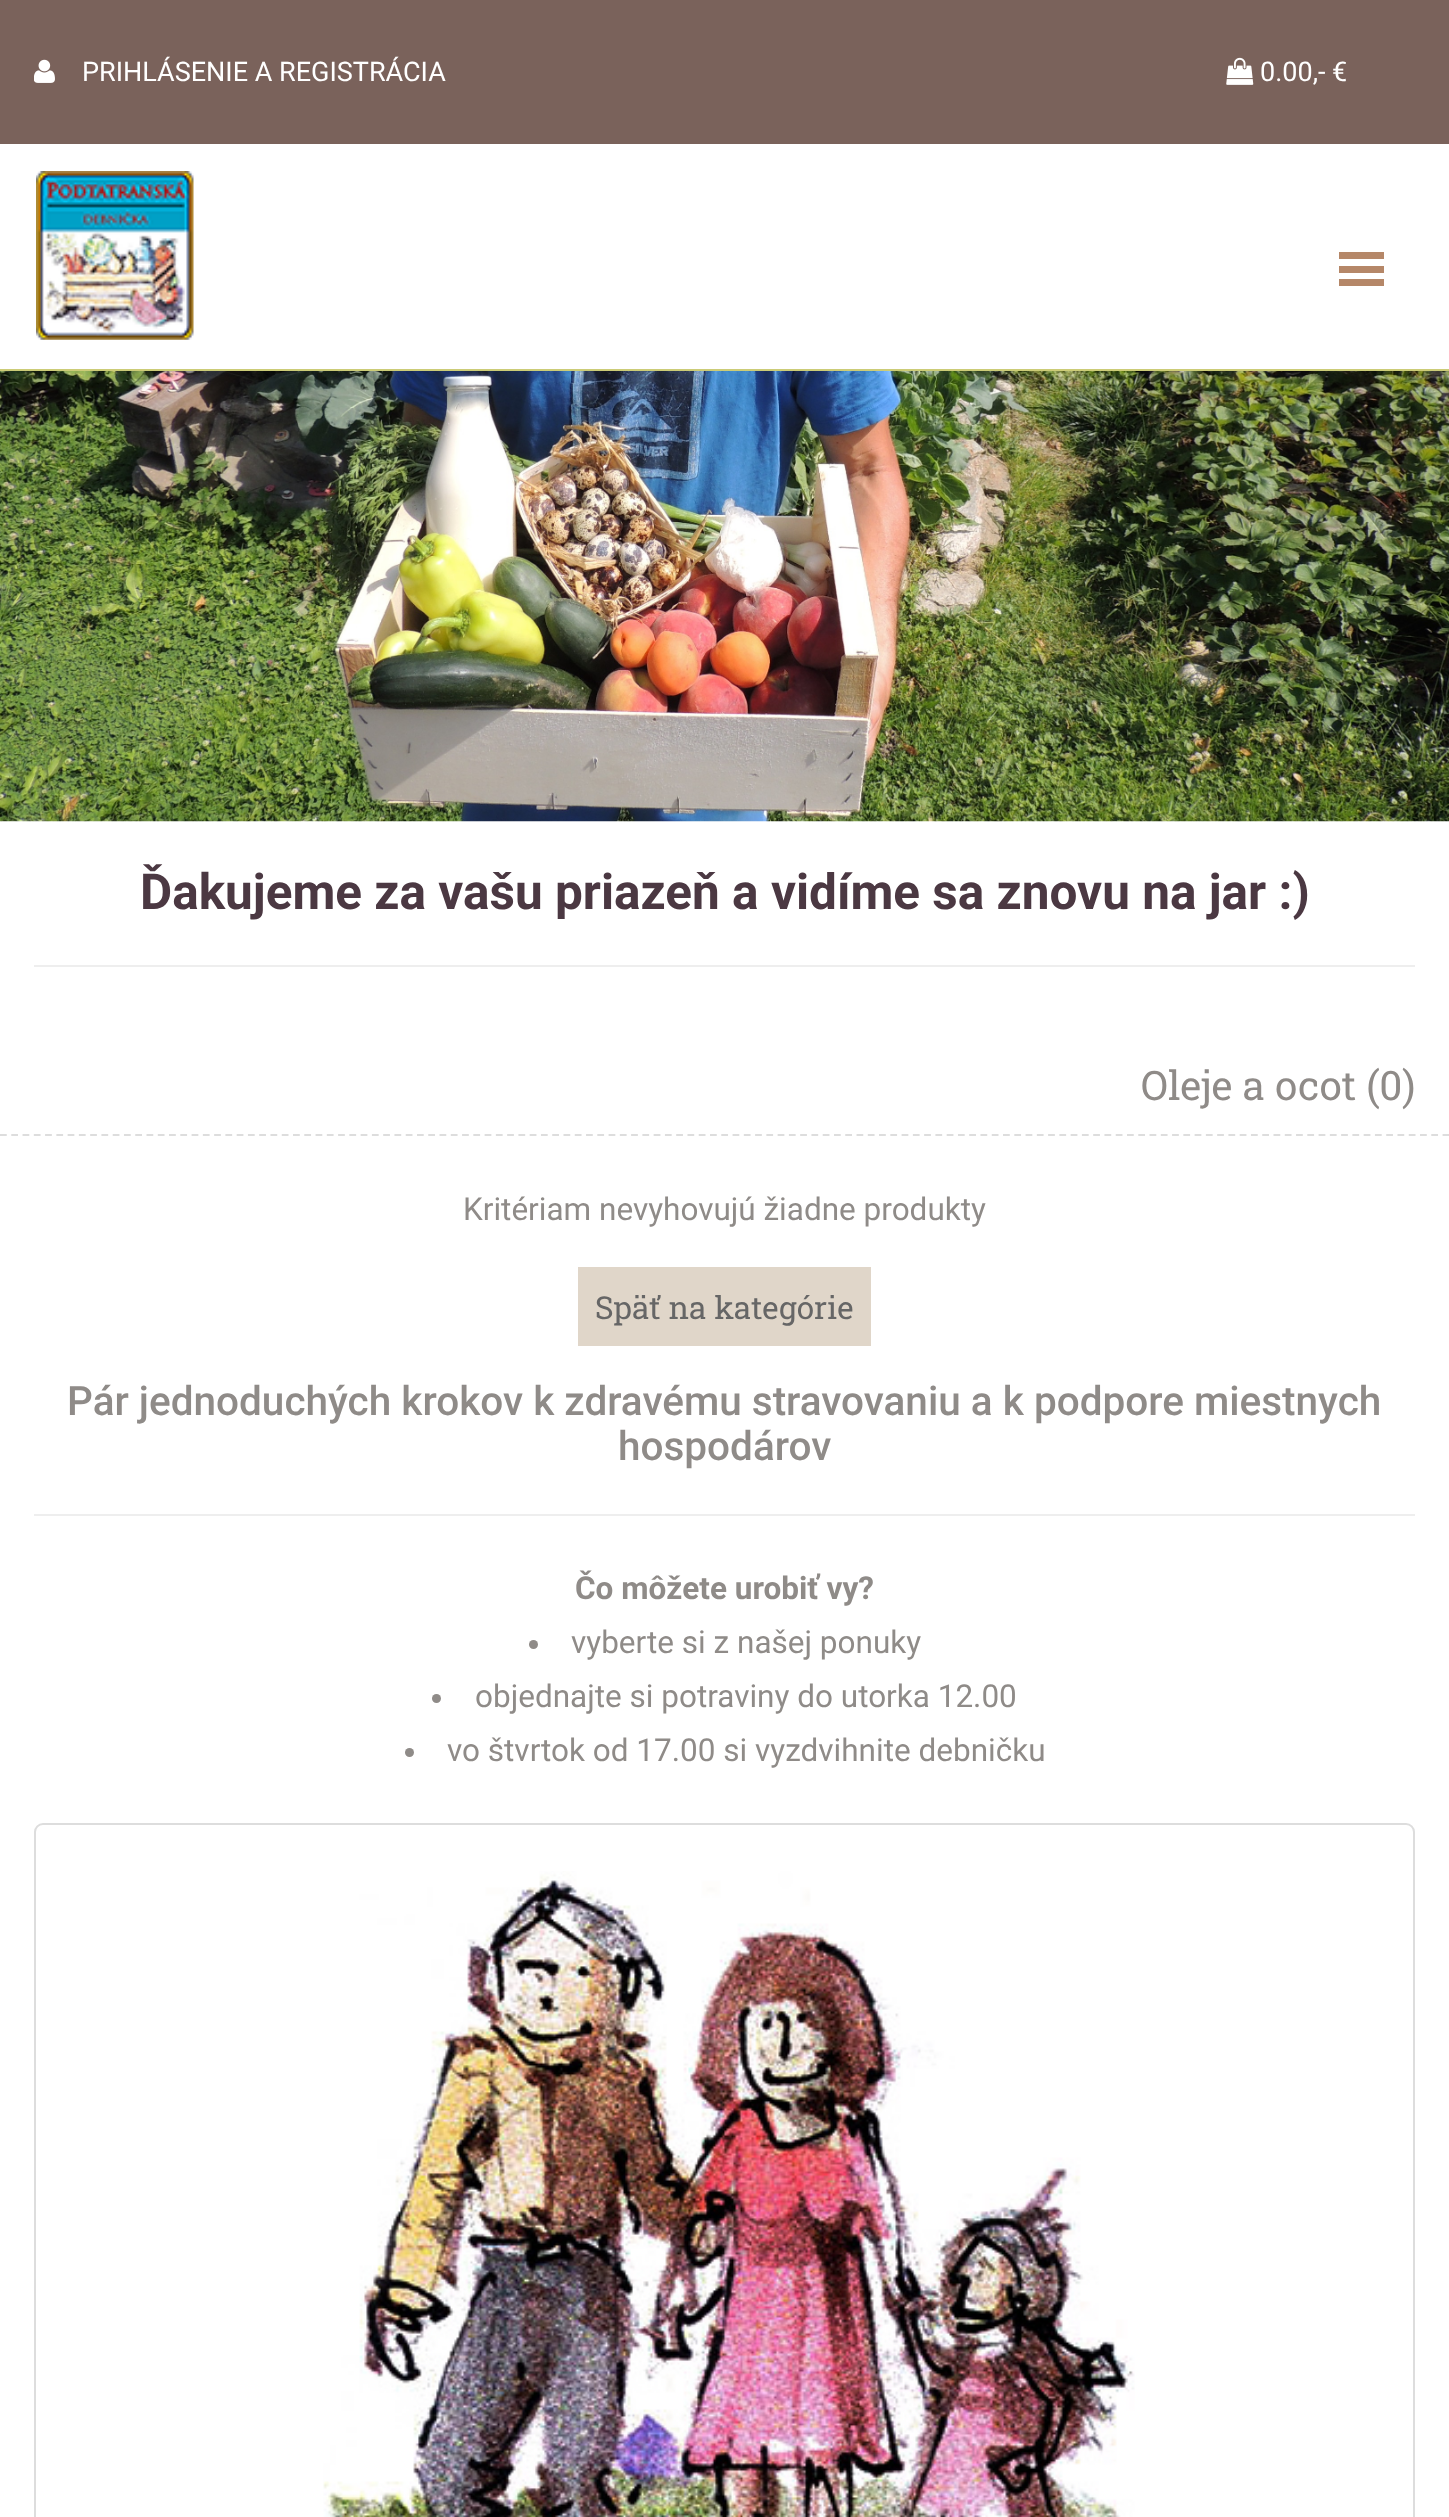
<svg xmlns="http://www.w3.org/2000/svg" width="1449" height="2517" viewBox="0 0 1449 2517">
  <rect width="100%" height="100%" fill="#ffffff"/>
  <rect x="0" y="0" width="1449" height="144" fill="#7a625b"/>
  <image x="34" y="59" width="21" height="24" href="img1.png"/>
  <text x="82" y="81" font-family="Roboto" font-size="27" fill="#ffffff">PRIHLÁSENIE A REGISTRÁCIA</text>
  <image x="1226" y="57" width="28" height="28" href="img2.png"/>
  <text x="1260" y="81" font-family="Roboto" font-size="27" fill="#ffffff">0.00,- €</text>
  <image x="36" y="171" width="158" height="169" href="img3.png"/>
  <rect x="1339" y="252" width="45" height="7" fill="#b58768"/>
  <rect x="1339" y="266" width="45" height="7" fill="#b58768"/>
  <rect x="1339" y="279" width="45" height="7" fill="#b58768"/>
  <image x="0" y="371" width="1449" height="451" href="img4.png"/>
  <rect x="0" y="369" width="1449" height="2" fill="#cccc77"/>
  <text x="140" y="909" font-family="Roboto" font-size="49.5" font-weight="bold" fill="#4b3842">Ďakujeme za vašu priazeň a vidíme sa znovu na jar :)</text>
  <rect x="34" y="965" width="1381" height="2" fill="#eeeeee"/>
  <path d="M0 1135H1449" fill="none" stroke="#dddddd" stroke-width="2.2" stroke-dasharray="6.75 4.52"/>
  <text x="1141" y="1100" font-family="Roboto Slab" font-size="40.5" fill="#8f8b88">Oleje a ocot (0)</text>
  <text x="463" y="1220" font-family="Roboto" font-size="31.5" fill="#8f8b88">Kritériam nevyhovujú žiadne produkty</text>
  <rect x="578" y="1267" width="293" height="79" fill="#e0d6c9"/>
  <text x="595" y="1319" font-family="Roboto Slab" font-size="31.5" fill="#666666">Späť na kategórie</text>
  <text x="67" y="1415" font-family="Roboto" font-size="40.5" font-weight="500" fill="#8f8b88">Pár jednoduchých krokov k zdravému stravovaniu a k podpore miestnych</text>
  <text x="618" y="1460" font-family="Roboto" font-size="40.5" font-weight="500" fill="#8f8b88">hospodárov</text>
  <rect x="34" y="1514" width="1381" height="2" fill="#eeeeee"/>
  <text x="575" y="1599" font-family="Roboto" font-size="31.5" font-weight="bold" fill="#8f8b88">Čo môžete urobiť vy?</text>
  <circle cx="533.5" cy="1644.5" r="4.5" fill="#8f8b88"/>
  <text x="571" y="1653" font-family="Roboto" font-size="31.5" fill="#8f8b88">vyberte si z našej ponuky</text>
  <circle cx="436.5" cy="1698.5" r="4.5" fill="#8f8b88"/>
  <text x="475" y="1707" font-family="Roboto" font-size="31.5" fill="#8f8b88">objednajte si potraviny do utorka 12.00</text>
  <circle cx="409.5" cy="1752.5" r="4.5" fill="#8f8b88"/>
  <text x="447" y="1761" font-family="Roboto" font-size="31.5" fill="#8f8b88">vo štvrtok od 17.00 si vyzdvihnite debničku</text>
  <rect x="35" y="1824" width="1379" height="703" rx="8" fill="none" stroke="#dddddd" stroke-width="2"/>
  <image x="323" y="1871" width="812" height="646" href="img5.png"/>
</svg>
